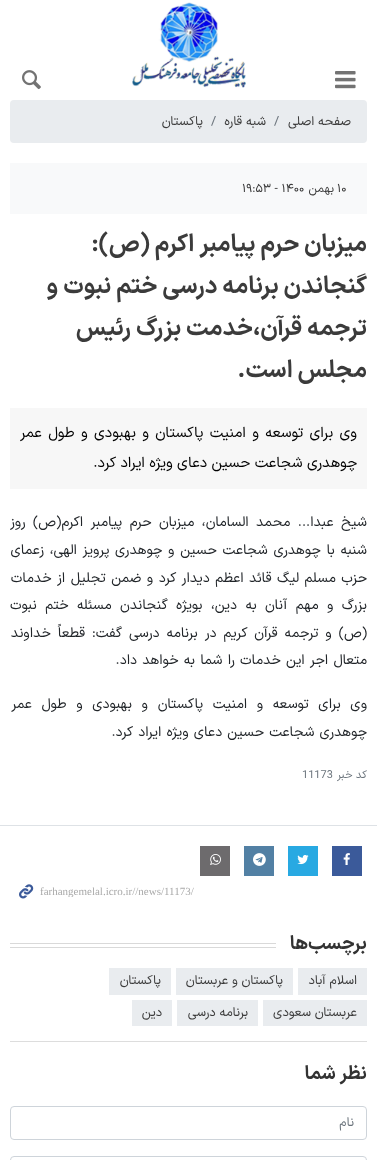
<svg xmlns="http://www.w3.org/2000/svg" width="377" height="1160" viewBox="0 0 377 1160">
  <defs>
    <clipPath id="clip1"><rect x="40" y="885" width="218" height="12"/></clipPath>
  </defs>
  <rect width="100%" height="100%" fill="#ffffff"/>
  <image x="132" y="2" width="114" height="86" href="img1.png"/>
  <image x="335" y="71" width="21" height="18" href="img2.png"/>
  <image x="22" y="70" width="19" height="20" href="img3.png"/>
  <rect x="10" y="100" width="357" height="43" rx="4" fill="#e9ecef"/>
  <text x="351" y="125" font-family="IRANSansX" font-size="12.75" direction="rtl" fill="#3b3b3b">صفحه اصلی</text>
  <text x="274" y="125" font-family="IRANSansX" font-size="12.75" fill="#6c757d">/</text>
  <text x="266" y="125" font-family="IRANSansX" font-size="12.75" direction="rtl" fill="#3b3b3b">شبه قاره</text>
  <text x="211" y="125" font-family="IRANSansX" font-size="12.75" fill="#6c757d">/</text>
  <text x="203" y="125" font-family="IRANSansX" font-size="12.75" direction="rtl" fill="#3b3b3b">پاکستان</text>
  <rect x="10" y="163" width="357" height="51" fill="#f8f9fa"/>
  <text x="337" y="192" font-family="IRANSansX" font-size="12" fill="#3b3b3b">۱۰</text>
  <text x="334" y="192" font-family="IRANSansX" font-size="12" direction="rtl" fill="#3b3b3b">بهمن</text>
  <text x="242" y="192" font-family="IRANSansX" font-size="12" fill="#3b3b3b">۱۹:۵۳ - ۱۴۰۰</text>
  <text x="367" y="251" font-family="IRANSansX" font-size="24" font-weight="bold" direction="rtl" fill="#3b3b3b">میزبان حرم پیامبر اکرم (ص):</text>
  <text x="367" y="293" font-family="IRANSansX" font-size="24" font-weight="bold" direction="rtl" fill="#3b3b3b">گنجاندن برنامه درسی ختم نبوت و</text>
  <text x="367" y="335" font-family="IRANSansX" font-size="24" font-weight="bold" direction="rtl" fill="#3b3b3b">ترجمه قرآن،خدمت بزرگ رئیس</text>
  <text x="367" y="377" font-family="IRANSansX" font-size="24" font-weight="bold" direction="rtl" fill="#3b3b3b">مجلس است.</text>
  <rect x="10" y="408" width="357" height="81" fill="#f7f7f7"/>
  <text x="357" y="437" word-spacing="1.9" font-family="IRANSansX" font-size="14.8" direction="rtl" fill="#000000">وی برای توسعه و امنیت پاکستان و بهبودی و طول عمر</text>
  <text x="357" y="467" font-family="IRANSansX" font-size="14.8" direction="rtl" fill="#000000">چوهدری شجاعت حسین دعای ویژه ایراد کرد.</text>
  <text x="367" y="526" word-spacing="3.25" font-family="IRANSansX" font-size="14" direction="rtl" fill="#212529">شیخ عبدا... محمد السامان، میزبان حرم پیامبر اکرم(ص) روز</text>
  <text x="367" y="554" word-spacing="1.5" font-family="IRANSansX" font-size="14" direction="rtl" fill="#212529">شنبه با چوهدری شجاعت حسین و چوهدری پرویز الهی، زعمای</text>
  <text x="367" y="582" word-spacing="1.25" font-family="IRANSansX" font-size="14" direction="rtl" fill="#212529">حزب مسلم لیگ قائد اعظم دیدار کرد و ضمن تجلیل از خدمات</text>
  <text x="367" y="609" word-spacing="4.25" font-family="IRANSansX" font-size="14" direction="rtl" fill="#212529">بزرگ و مهم آنان به دین، بویژه گنجاندن مسئله ختم نبوت</text>
  <text x="367" y="637" word-spacing="2.75" font-family="IRANSansX" font-size="14" direction="rtl" fill="#212529">(ص) و ترجمه قرآن کریم در برنامه درسی گفت: قطعاً خداوند</text>
  <text x="367" y="664" word-spacing="1" font-family="IRANSansX" font-size="14" direction="rtl" fill="#212529">متعال اجر این خدمات را شما به خواهد داد.</text>
  <text x="367" y="708" word-spacing="5.5" font-family="IRANSansX" font-size="14" direction="rtl" fill="#212529">وی برای توسعه و امنیت پاکستان و بهبودی و طول عمر</text>
  <text x="367" y="736" word-spacing="1" font-family="IRANSansX" font-size="14" direction="rtl" fill="#212529">چوهدری شجاعت حسین دعای ویژه ایراد کرد.</text>
  <text x="367" y="778" font-family="IRANSansX" font-size="11" direction="rtl" fill="#6c757d">کد خبر</text>
  <text x="302" y="778" font-family="IRANSansX" font-size="11" fill="#6c757d">11173</text>
  <rect x="0" y="825" width="377" height="1" fill="#dee2e6"/>
  <rect x="332" y="846" width="30" height="30" fill="#3b5a9a"/>
  <image x="343" y="853" width="7" height="12" href="img4.png"/>
  <rect x="288" y="846" width="30" height="30" fill="#28a9e2"/>
  <image x="297" y="855" width="12" height="10" href="img5.png"/>
  <rect x="244" y="846" width="30" height="30" fill="#5280a4"/>
  <image x="253" y="853" width="13" height="13" href="img6.png"/>
  <rect x="200" y="846" width="30" height="30" fill="#6d6b6d"/>
  <image x="210" y="854" width="11" height="11" href="img7.png"/>
  <g clip-path="url(#clip1)">
    <text x="40" y="895" font-family="Liberation Serif" font-size="11" fill="#a9a9a9">farhangemelal.icro.ir//news/11173/</text>
  </g>
  <image x="19" y="884" width="15" height="15" href="img8.png"/>
  <text x="367" y="949" font-family="IRANSansX" font-size="19" font-weight="bold" direction="rtl" fill="#333333">برچسب‌ها</text>
  <rect x="10" y="943" width="266" height="1" fill="#d9d9d9"/>
  <rect x="10" y="947" width="266" height="1" fill="#d9d9d9"/>
  <rect x="298" y="968" width="69" height="27" fill="#e9ecef"/>
  <text x="357" y="984" font-family="IRANSansX" font-size="12.75" direction="rtl" fill="#3b3b3b">اسلام آباد</text>
  <rect x="176" y="968" width="117" height="27" fill="#e9ecef"/>
  <text x="283" y="984" font-family="IRANSansX" font-size="12.75" direction="rtl" fill="#3b3b3b">پاکستان و عربستان</text>
  <rect x="109" y="968" width="62" height="27" fill="#e9ecef"/>
  <text x="161" y="984" font-family="IRANSansX" font-size="12.75" direction="rtl" fill="#3b3b3b">پاکستان</text>
  <rect x="263" y="1000" width="104" height="26" fill="#e9ecef"/>
  <text x="357" y="1016" font-family="IRANSansX" font-size="12.75" direction="rtl" fill="#3b3b3b">عربستان سعودی</text>
  <rect x="177" y="1000" width="81" height="26" fill="#e9ecef"/>
  <text x="248" y="1016" font-family="IRANSansX" font-size="12.75" direction="rtl" fill="#3b3b3b">برنامه درسی</text>
  <rect x="132" y="1000" width="40" height="26" fill="#e9ecef"/>
  <text x="162" y="1016" font-family="IRANSansX" font-size="12.75" direction="rtl" fill="#3b3b3b">دین</text>
  <rect x="10" y="1041" width="357" height="1" fill="#dddddd"/>
  <text x="367" y="1079" font-family="IRANSansX" font-size="19" font-weight="bold" direction="rtl" fill="#333333">نظر شما</text>
  <rect x="10.5" y="1106.5" width="356" height="33" rx="3.5" fill="none" stroke="#ced4da"/>
  <text x="354" y="1126" font-family="IRANSansX" font-size="12.75" direction="rtl" fill="#6c757d">نام</text>
  <rect x="10.5" y="1156.5" width="356" height="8" rx="3.5" fill="none" stroke="#ced4da"/>
</svg>
